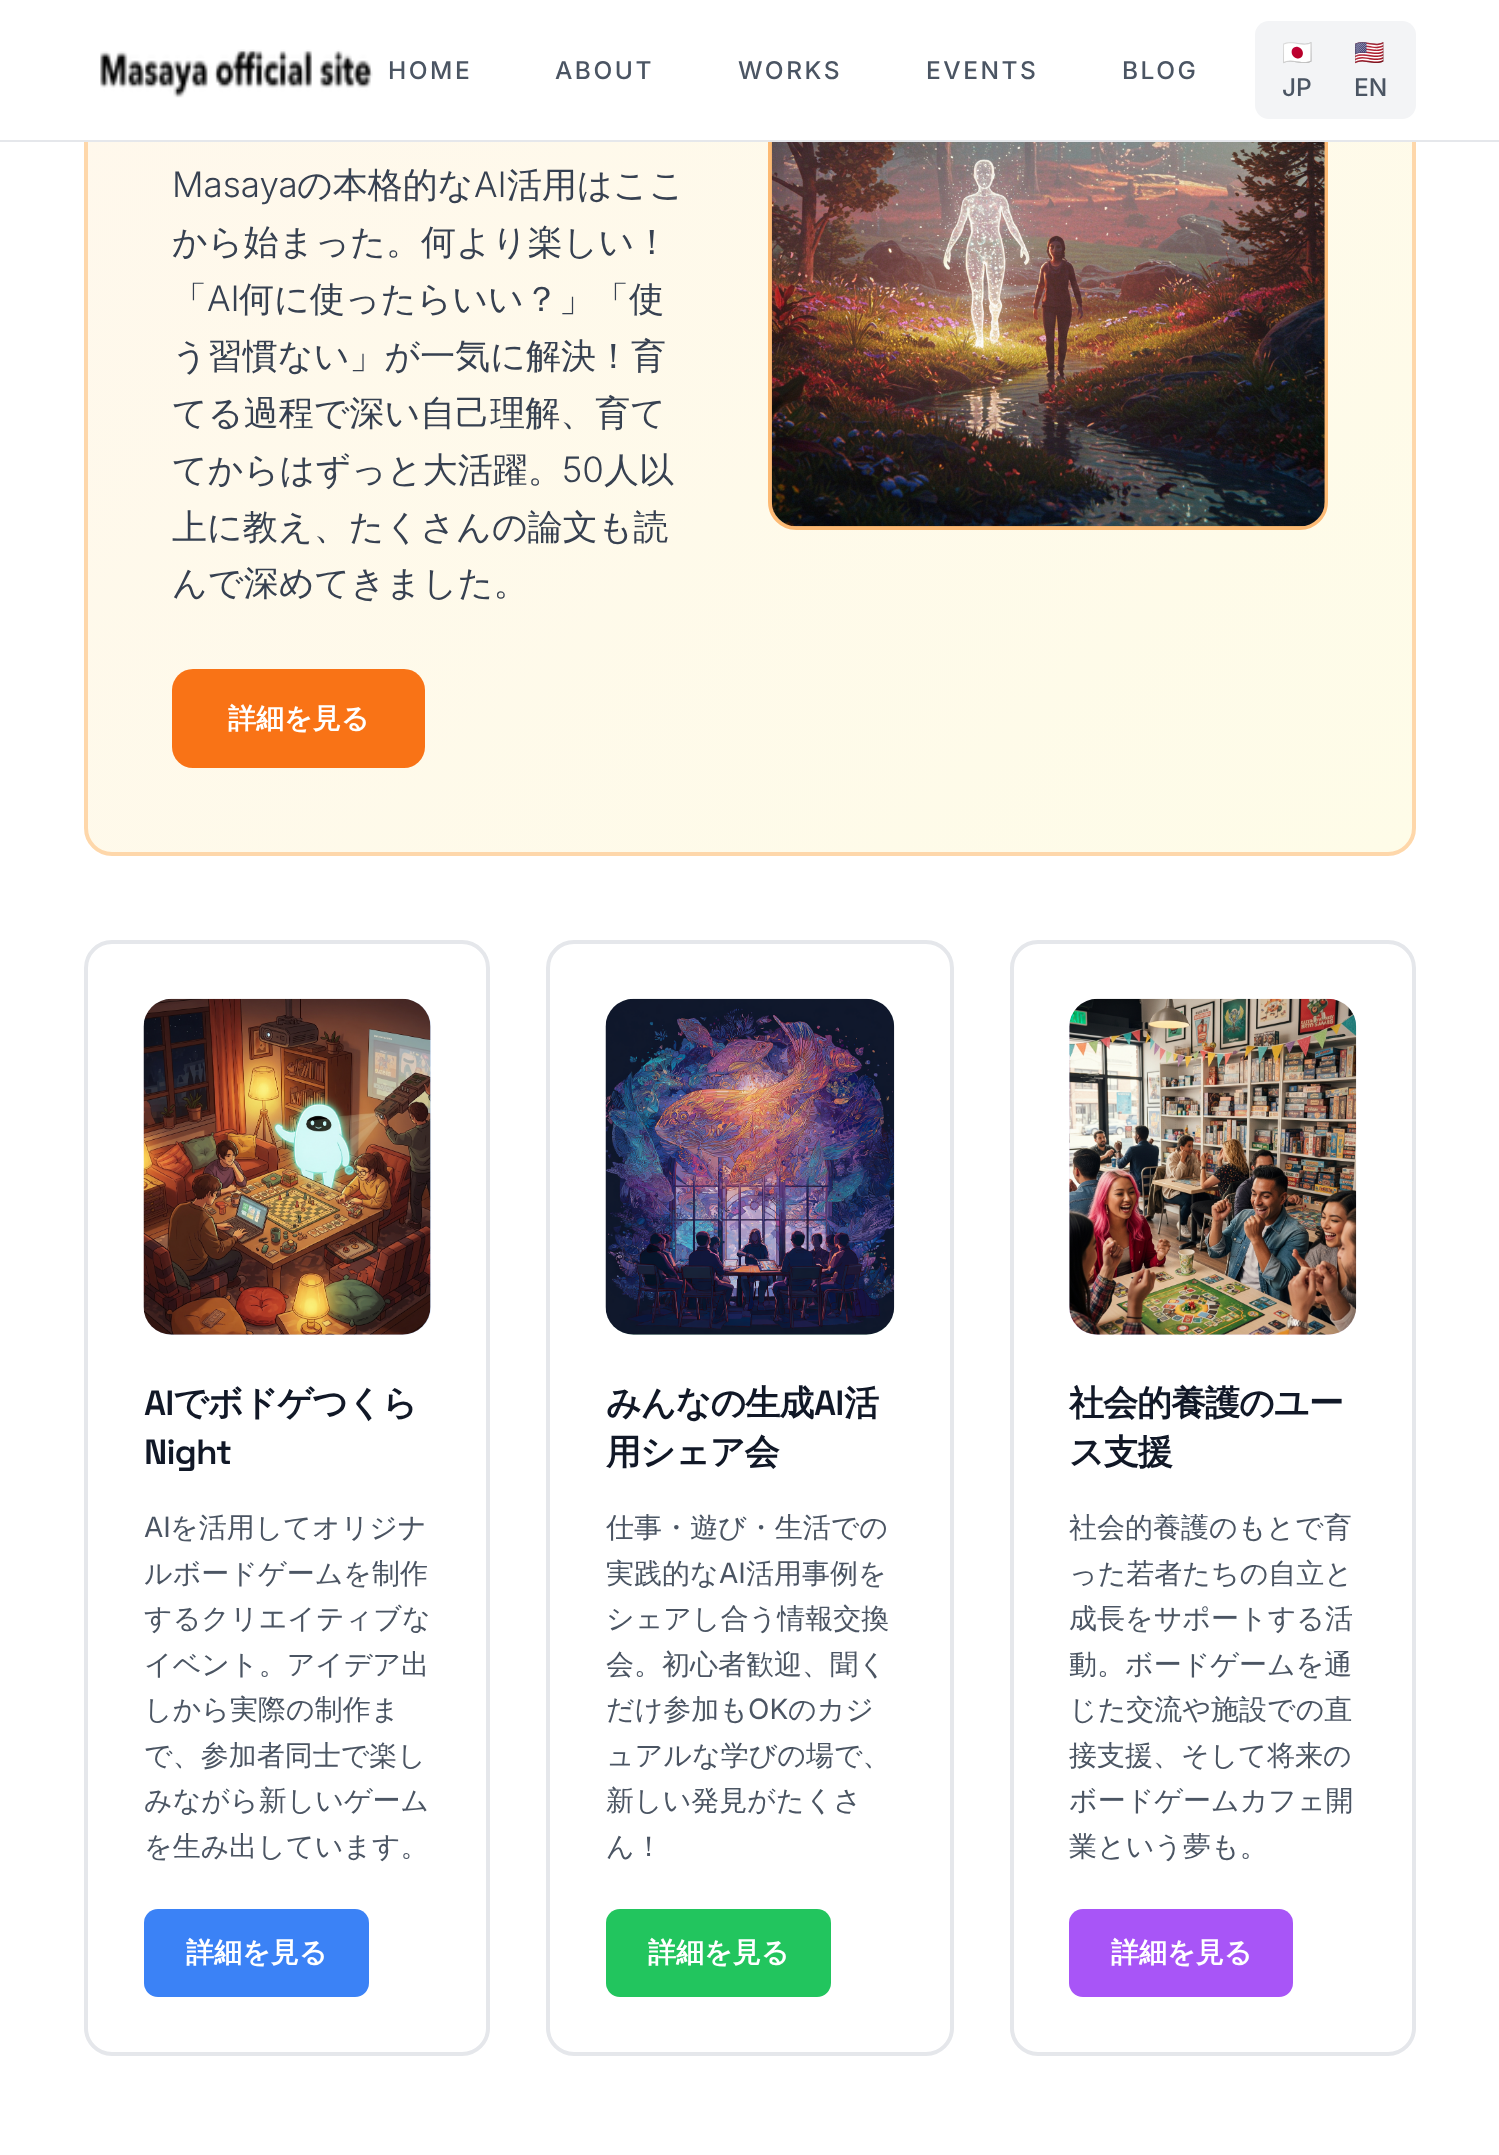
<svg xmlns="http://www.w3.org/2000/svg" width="1499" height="2155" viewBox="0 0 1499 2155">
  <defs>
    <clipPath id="clip1"><rect x="84" y="-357" width="1332" height="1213" rx="28"/></clipPath>
    <linearGradient id="g1" gradientUnits="userSpaceOnUse" x1="150" y1="-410" x2="1350" y2="909"><stop offset="0" stop-color="#fff7ed"/><stop offset="1" stop-color="#fefce8"/></linearGradient>
  </defs>
  <rect width="100%" height="100%" fill="#ffffff"/>
  <g clip-path="url(#clip1)">
    <rect x="88" y="142" width="1324" height="710" fill="url(#g1)"/>
  </g>
  <rect x="86" y="-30" width="1328" height="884" rx="26" fill="none" stroke="#fed7aa" stroke-width="4"/>
  <rect x="770" y="-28" width="556" height="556" rx="26" fill="none" stroke="#fdba74" stroke-width="4"/>
  <rect x="84" y="0" width="1332" height="140" fill="#ffffff"/>
  <rect x="0" y="140" width="1499" height="2" fill="#e5e7eb"/>
  <image x="100" y="49" width="273" height="49" href="img1.png"/>
  <text x="388" y="79" font-family="Inter" font-size="24.5" font-weight="500" letter-spacing="2.5" fill="#4b5563">HOME</text>
  <text x="555" y="79" font-family="Inter" font-size="24.5" font-weight="500" letter-spacing="2.5" fill="#4b5563">ABOUT</text>
  <text x="738" y="79" font-family="Inter" font-size="24.5" font-weight="500" letter-spacing="2.5" fill="#4b5563">WORKS</text>
  <text x="926" y="79" font-family="Inter" font-size="24.5" font-weight="500" letter-spacing="2.5" fill="#4b5563">EVENTS</text>
  <text x="1122" y="79" font-family="Inter" font-size="24.5" font-weight="500" letter-spacing="2.5" fill="#4b5563">BLOG</text>
  <rect x="1255" y="21" width="161" height="98" rx="14" fill="#f3f4f6"/>
  <text x="1282" y="61" font-family="Noto Color Emoji" font-size="24.5" fill="#4b5563">🇯🇵</text>
  <text x="1282" y="96" font-family="Inter" font-size="24.5" font-weight="500" fill="#4b5563">JP</text>
  <text x="1354" y="61" font-family="Noto Color Emoji" font-size="24.5" fill="#4b5563">🇺🇸</text>
  <text x="1354" y="96" font-family="Inter" font-size="24.5" font-weight="500" fill="#4b5563">EN</text>
  <text x="172" y="197" font-family="Inter" font-size="35" font-weight="300" fill="#374151">Masaya</text>
  <text x="297" y="197" font-family="WenQuanYi Zen Hei" font-size="35" font-weight="500" fill="#374151">の本格的な</text>
  <text x="474" y="197" font-family="Inter" font-size="35" font-weight="300" fill="#374151">AI</text>
  <text x="507" y="197" font-family="WenQuanYi Zen Hei" font-size="35" font-weight="500" fill="#374151">活用はここ</text>
  <text x="172" y="254" font-family="WenQuanYi Zen Hei" font-size="35" font-weight="500" fill="#374151">から始まった。何より楽しい！</text>
  <text x="172" y="311" font-family="WenQuanYi Zen Hei" font-size="35" font-weight="500" fill="#374151">「</text>
  <text x="207" y="311" font-family="Inter" font-size="35" font-weight="300" fill="#374151">AI</text>
  <text x="239" y="311" font-family="WenQuanYi Zen Hei" font-size="35" font-weight="500" fill="#374151">何に使ったらいい？」「使</text>
  <text x="172" y="368" font-family="WenQuanYi Zen Hei" font-size="35" font-weight="500" fill="#374151">う習慣ない」が一気に解決！育</text>
  <text x="172" y="425" font-family="WenQuanYi Zen Hei" font-size="35" font-weight="500" fill="#374151">てる過程で深い自己理解、育て</text>
  <text x="172" y="482" font-family="WenQuanYi Zen Hei" font-size="35" font-weight="500" fill="#374151">てからはずっと大活躍。</text>
  <text x="562" y="482" font-family="Inter" font-size="35" font-weight="300" fill="#374151">50</text>
  <text x="604" y="482" font-family="WenQuanYi Zen Hei" font-size="35" font-weight="500" fill="#374151">人以</text>
  <text x="172" y="539" font-family="WenQuanYi Zen Hei" font-size="35" font-weight="500" fill="#374151">上に教え、たくさんの論文も読</text>
  <text x="172" y="595" font-family="WenQuanYi Zen Hei" font-size="35" font-weight="500" fill="#374151">んで深めてきました。</text>
  <rect x="172" y="669" width="253" height="99" rx="21" fill="#f97316"/>
  <text x="228" y="728" font-family="WenQuanYi Zen Hei" font-size="28" font-weight="bold" fill="#ffffff">詳細を見る</text>
  <image x="771" y="142" width="554" height="385" href="img2.png"/>
  <rect x="86" y="942" width="402" height="1112" rx="26" fill="none" stroke="#e5e7eb" stroke-width="4"/>
  <rect x="144" y="999" width="287" height="336" rx="28" fill="#dbeafe"/>
  <image x="143" y="998" width="288" height="337" href="img3.png"/>
  <text x="144" y="1415" font-family="Space Grotesk" font-size="35" font-weight="600" letter-spacing="-1" fill="#111827">AI</text>
  <text x="173" y="1415" font-family="WenQuanYi Zen Hei" font-size="35" font-weight="bold" letter-spacing="-1" fill="#111827">でボドゲつくら</text>
  <text x="144" y="1464" font-family="Space Grotesk" font-size="35" font-weight="600" letter-spacing="-1" fill="#111827">Night</text>
  <text x="144" y="1537" font-family="Inter" font-size="28" fill="#4b5563">AI</text>
  <text x="170" y="1537" font-family="WenQuanYi Zen Hei" font-size="28" font-weight="500" fill="#4b5563">を活用してオリジナ</text>
  <text x="144" y="1583" font-family="WenQuanYi Zen Hei" font-size="28" font-weight="500" fill="#4b5563">ルボードゲームを制作</text>
  <text x="144" y="1628" font-family="WenQuanYi Zen Hei" font-size="28" font-weight="500" fill="#4b5563">するクリエイティブな</text>
  <text x="144" y="1674" font-family="WenQuanYi Zen Hei" font-size="28" font-weight="500" fill="#4b5563">イベント。アイデア出</text>
  <text x="144" y="1719" font-family="WenQuanYi Zen Hei" font-size="28" font-weight="500" fill="#4b5563">しから実際の制作ま</text>
  <text x="144" y="1765" font-family="WenQuanYi Zen Hei" font-size="28" font-weight="500" fill="#4b5563">で、参加者同士で楽し</text>
  <text x="144" y="1810" font-family="WenQuanYi Zen Hei" font-size="28" font-weight="500" fill="#4b5563">みながら新しいゲーム</text>
  <text x="144" y="1856" font-family="WenQuanYi Zen Hei" font-size="28" font-weight="500" fill="#4b5563">を生み出しています。</text>
  <rect x="144" y="1909" width="225" height="88" rx="14" fill="#3b82f6"/>
  <text x="186" y="1962" font-family="WenQuanYi Zen Hei" font-size="28" font-weight="bold" fill="#ffffff">詳細を見る</text>
  <rect x="548" y="942" width="404" height="1112" rx="26" fill="none" stroke="#e5e7eb" stroke-width="4"/>
  <rect x="606" y="999" width="288" height="336" rx="28" fill="#dcfce7"/>
  <image x="605" y="998" width="290" height="337" href="img4.png"/>
  <text x="606" y="1415" font-family="WenQuanYi Zen Hei" font-size="35" font-weight="bold" letter-spacing="-1" fill="#111827">みんなの生成</text>
  <text x="814" y="1415" font-family="Space Grotesk" font-size="35" font-weight="600" letter-spacing="-1" fill="#111827">AI</text>
  <text x="844" y="1415" font-family="WenQuanYi Zen Hei" font-size="35" font-weight="bold" letter-spacing="-1" fill="#111827">活</text>
  <text x="606" y="1464" font-family="WenQuanYi Zen Hei" font-size="35" font-weight="bold" letter-spacing="-1" fill="#111827">用シェア会</text>
  <text x="606" y="1537" font-family="WenQuanYi Zen Hei" font-size="28" font-weight="500" fill="#4b5563">仕事・遊び・生活での</text>
  <text x="606" y="1583" font-family="WenQuanYi Zen Hei" font-size="28" font-weight="500" fill="#4b5563">実践的な</text>
  <text x="719" y="1583" font-family="Inter" font-size="28" fill="#4b5563">AI</text>
  <text x="746" y="1583" font-family="WenQuanYi Zen Hei" font-size="28" font-weight="500" fill="#4b5563">活用事例を</text>
  <text x="606" y="1628" font-family="WenQuanYi Zen Hei" font-size="28" font-weight="500" fill="#4b5563">シェアし合う情報交換</text>
  <text x="606" y="1674" font-family="WenQuanYi Zen Hei" font-size="28" font-weight="500" fill="#4b5563">会。初心者歓迎、聞く</text>
  <text x="606" y="1719" font-family="WenQuanYi Zen Hei" font-size="28" font-weight="500" fill="#4b5563">だけ参加も</text>
  <text x="748" y="1719" font-family="Inter" font-size="28" fill="#4b5563">OK</text>
  <text x="788" y="1719" font-family="WenQuanYi Zen Hei" font-size="28" font-weight="500" fill="#4b5563">のカジ</text>
  <text x="606" y="1765" font-family="WenQuanYi Zen Hei" font-size="28" font-weight="500" fill="#4b5563">ュアルな学びの場で、</text>
  <text x="606" y="1810" font-family="WenQuanYi Zen Hei" font-size="28" font-weight="500" fill="#4b5563">新しい発見がたくさ</text>
  <text x="606" y="1856" font-family="WenQuanYi Zen Hei" font-size="28" font-weight="500" fill="#4b5563">ん！</text>
  <rect x="606" y="1909" width="225" height="88" rx="14" fill="#22c55e"/>
  <text x="648" y="1962" font-family="WenQuanYi Zen Hei" font-size="28" font-weight="bold" fill="#ffffff">詳細を見る</text>
  <rect x="1012" y="942" width="402" height="1112" rx="26" fill="none" stroke="#e5e7eb" stroke-width="4"/>
  <rect x="1069" y="999" width="287" height="336" rx="28" fill="#f3e8ff"/>
  <image x="1069" y="998" width="288" height="337" href="img5.png"/>
  <text x="1069" y="1415" font-family="WenQuanYi Zen Hei" font-size="35" font-weight="bold" letter-spacing="-1" fill="#111827">社会的養護のユー</text>
  <text x="1069" y="1464" font-family="WenQuanYi Zen Hei" font-size="35" font-weight="bold" letter-spacing="-1" fill="#111827">ス支援</text>
  <text x="1069" y="1537" font-family="WenQuanYi Zen Hei" font-size="28" font-weight="500" fill="#4b5563">社会的養護のもとで育</text>
  <text x="1069" y="1583" font-family="WenQuanYi Zen Hei" font-size="28" font-weight="500" fill="#4b5563">った若者たちの自立と</text>
  <text x="1069" y="1628" font-family="WenQuanYi Zen Hei" font-size="28" font-weight="500" fill="#4b5563">成長をサポートする活</text>
  <text x="1069" y="1674" font-family="WenQuanYi Zen Hei" font-size="28" font-weight="500" fill="#4b5563">動。ボードゲームを通</text>
  <text x="1069" y="1719" font-family="WenQuanYi Zen Hei" font-size="28" font-weight="500" fill="#4b5563">じた交流や施設での直</text>
  <text x="1069" y="1765" font-family="WenQuanYi Zen Hei" font-size="28" font-weight="500" fill="#4b5563">接支援、そして将来の</text>
  <text x="1069" y="1810" font-family="WenQuanYi Zen Hei" font-size="28" font-weight="500" fill="#4b5563">ボードゲームカフェ開</text>
  <text x="1069" y="1856" font-family="WenQuanYi Zen Hei" font-size="28" font-weight="500" fill="#4b5563">業という夢も。</text>
  <rect x="1069" y="1909" width="224" height="88" rx="14" fill="#a855f7"/>
  <text x="1111" y="1962" font-family="WenQuanYi Zen Hei" font-size="28" font-weight="bold" fill="#ffffff">詳細を見る</text>
</svg>
